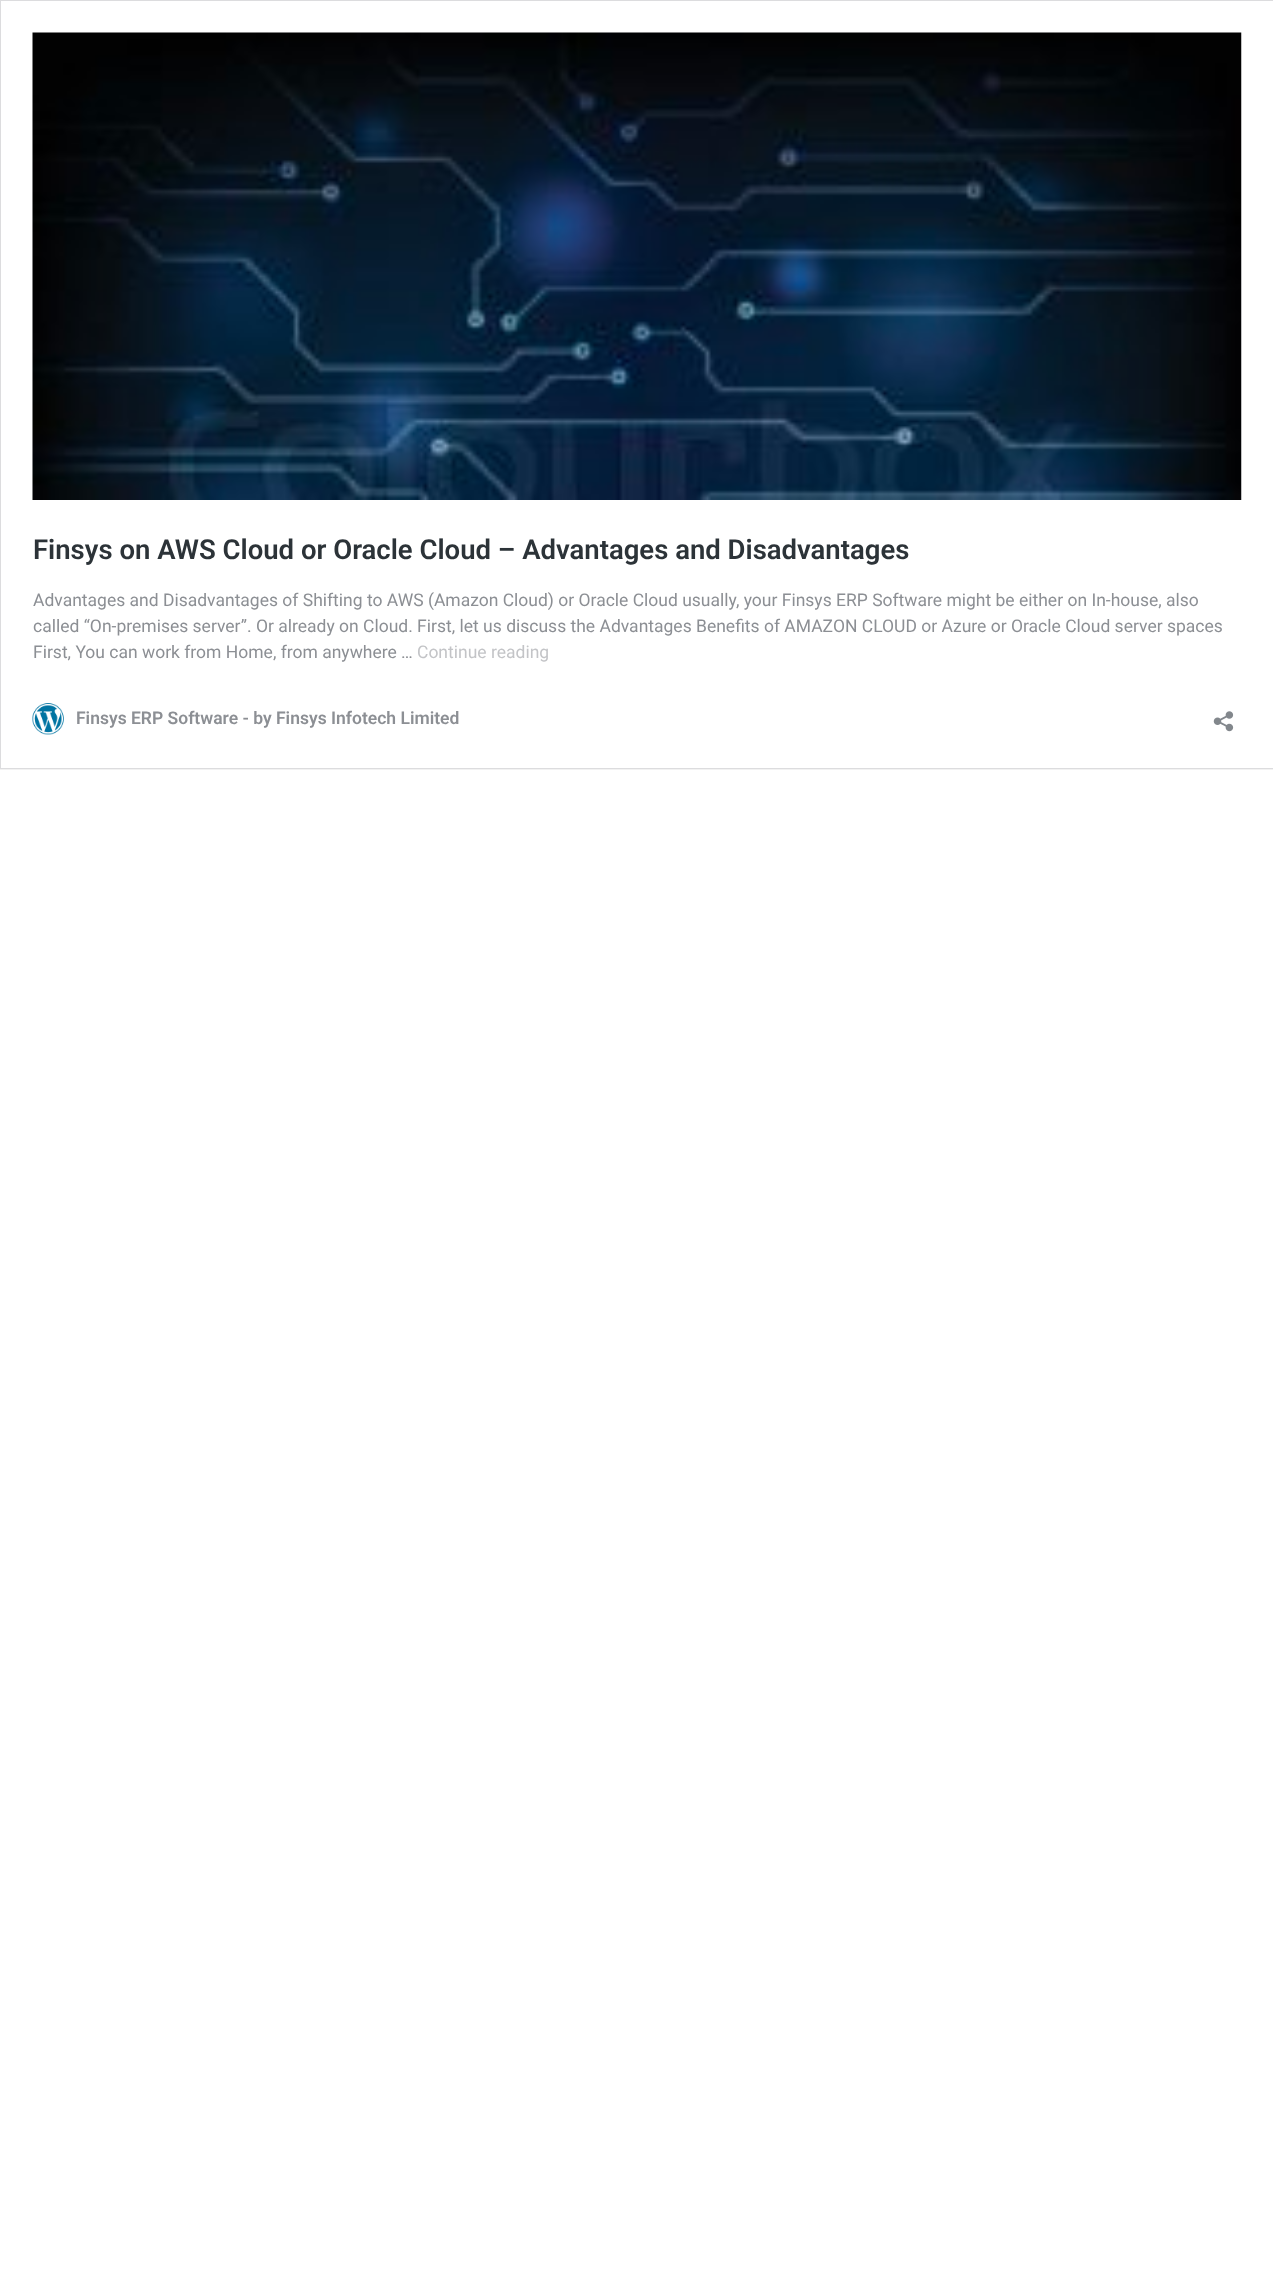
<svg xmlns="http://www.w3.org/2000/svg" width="1273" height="2278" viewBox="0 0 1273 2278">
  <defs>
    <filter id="blur1" x="-50%" y="-200%" width="200%" height="500%"><feGaussianBlur stdDeviation="0.5"/></filter>
  </defs>
  <rect width="100%" height="100%" fill="#ffffff"/>
  <rect x="0" y="1" width="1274" height="769" fill="#000000" fill-opacity="0.05" filter="url(#blur1)"/>
  <rect x="0.5" y="0.5" width="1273" height="768" fill="#ffffff" stroke="#dcdcde"/>
  <image x="32" y="32" width="1210" height="468" href="img1.png"/>
  <text x="33" y="559" font-family="Roboto" font-size="27.5" font-weight="600" fill="#2c3338">Finsys on AWS Cloud or Oracle Cloud – Advantages and Disadvantages</text>
  <text x="33" y="606" font-family="Roboto" font-size="17.5" fill="#8c8f94">Advantages and Disadvantages of Shifting to AWS (Amazon Cloud) or Oracle Cloud usually, your Finsys ERP Software might be either on In-house, also</text>
  <text x="33" y="632" font-family="Roboto" font-size="17.5" fill="#8c8f94">called “On-premises server”. Or already on Cloud. First, let us discuss the Advantages Benefits of AMAZON CLOUD or Azure or Oracle Cloud server spaces</text>
  <text x="33" y="658" font-family="Roboto" font-size="17.5" fill="#8c8f94">First, You can work from Home, from anywhere …</text>
  <text x="417" y="658" font-family="Roboto" font-size="17.5" fill="#c3c4c7">Continue reading</text>
  <image x="32" y="703" width="32" height="32" href="img2.png"/>
  <text x="76" y="724" font-family="Roboto" font-size="17.5" font-weight="600" fill="#8c8f94">Finsys ERP Software - by Finsys Infotech Limited</text>
  <image x="1213" y="711" width="21" height="21" href="img3.png"/>
</svg>
